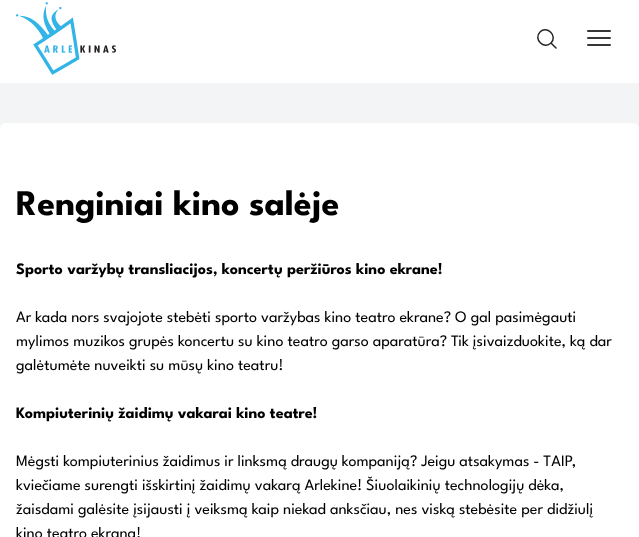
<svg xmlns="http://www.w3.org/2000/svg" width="639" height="537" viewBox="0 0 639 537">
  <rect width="100%" height="100%" fill="#ffffff"/>
  <image x="16" y="2" width="100" height="73" href="img1.png"/>
  <path d="M556 48L551 43M551 43C558 36 547 25 540 32C533 39 544 50 551 43Z" fill="none" stroke="#262626" stroke-width="1.5" stroke-linecap="round" stroke-linejoin="round"/>
  <path d="M588 31H610M588 38H610M588 45H610" fill="none" stroke="#363636" stroke-width="2" stroke-linecap="round" stroke-linejoin="round"/>
  <rect x="0" y="83" width="639" height="46" fill="#f3f4f6"/>
  <rect x="0" y="123" width="639" height="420" rx="6" fill="#ffffff"/>
  <text x="16" y="215" font-family="League Spartan" font-size="36" font-weight="bold" fill="#000000">Renginiai kino salėje</text>
  <text x="16" y="274" font-family="League Spartan" font-size="16" font-weight="bold" fill="#000000">Sporto varžybų transliacijos, koncertų peržiūros kino ekrane!</text>
  <text x="16" y="322" font-family="League Spartan" font-size="16" fill="#000000">Ar kada nors svajojote stebėti sporto varžybas kino teatro ekrane? O gal pasimėgauti</text>
  <text x="16" y="346" font-family="League Spartan" font-size="16" fill="#000000">mylimos muzikos grupės koncertu su kino teatro garso aparatūra? Tik įsivaizduokite, ką dar</text>
  <text x="16" y="370" font-family="League Spartan" font-size="16" fill="#000000">galėtumėte nuveikti su mūsų kino teatru!</text>
  <text x="16" y="418" font-family="League Spartan" font-size="16" font-weight="bold" fill="#000000">Kompiuterinių žaidimų vakarai kino teatre!</text>
  <text x="16" y="466" word-spacing="-0.1" font-family="League Spartan" font-size="16" fill="#000000">Mėgsti kompiuterinius žaidimus ir linksmą draugų kompaniją? Jeigu atsakymas - TAIP,</text>
  <text x="16" y="490" font-family="League Spartan" font-size="16" fill="#000000">kviečiame surengti išskirtinį žaidimų vakarą Arlekine! Šiuolaikinių technologijų dėka,</text>
  <text x="16" y="514" font-family="League Spartan" font-size="16" fill="#000000">žaisdami galėsite įsijausti į veiksmą kaip niekad anksčiau, nes viską stebėsite per didžiulį</text>
  <text x="16" y="538" font-family="League Spartan" font-size="16" fill="#000000">kino teatro ekraną!</text>
</svg>
